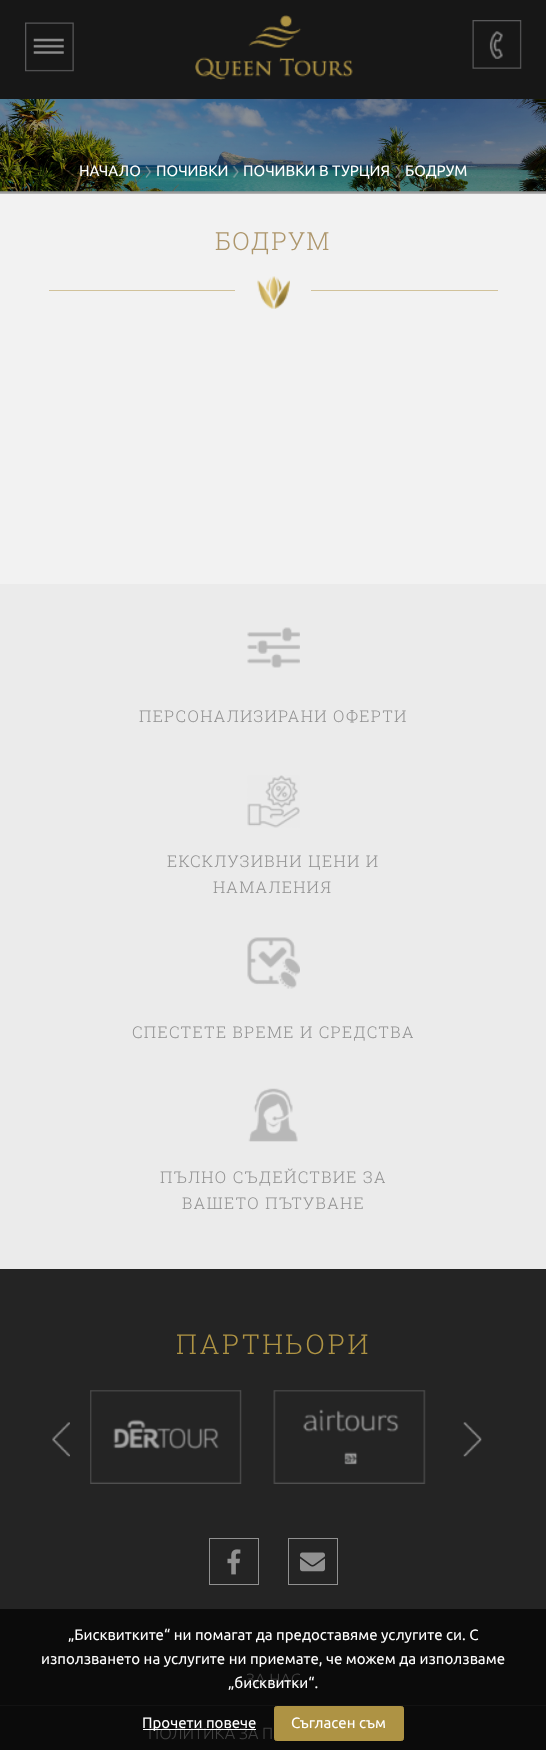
<svg xmlns="http://www.w3.org/2000/svg" width="546" height="1750" viewBox="0 0 546 1750">
  <rect width="100%" height="100%" fill="#f2f2f2"/>
  <rect x="0" y="0" width="546" height="99" fill="#171717"/>
  <image x="25" y="22" width="49" height="50" href="img1.png"/>
  <image x="195" y="15" width="158" height="65" href="img2.png"/>
  <image x="472" y="20" width="50" height="49" href="img3.png"/>
  <image x="0" y="99" width="546" height="93" href="img4.png"/>
  <image x="0" y="99" width="546" height="95" href="img5.png"/>
  <text x="79" y="176" font-family="Ubuntu" font-size="15" fill="#ffffff">НАЧАЛО</text>
  <image x="145" y="166" width="7" height="12" href="img6.png"/>
  <text x="156" y="176" font-family="Ubuntu" font-size="15" fill="#ffffff">ПОЧИВКИ</text>
  <image x="232" y="166" width="7" height="12" href="img7.png"/>
  <text x="243" y="176" font-family="Ubuntu" font-size="15" fill="#ffffff">ПОЧИВКИ В ТУРЦИЯ</text>
  <image x="395" y="166" width="7" height="12" href="img8.png"/>
  <text x="405" y="176" font-family="Ubuntu" font-size="15" fill="#ffffff">БОДРУМ</text>
  <text x="215" y="250" font-family="Roboto Slab" font-size="25" font-weight="300" letter-spacing="1.25" fill="#ae976d">БОДРУМ</text>
  <rect x="49" y="290" width="186" height="1" fill="#d1c29b"/>
  <image x="257" y="276" width="33" height="33" href="img9.png"/>
  <rect x="311" y="290" width="187" height="1" fill="#d1c29b"/>
  <rect x="0" y="584" width="546" height="685" fill="#ebebeb"/>
  <image x="247" y="627" width="53" height="41" href="img10.png"/>
  <text x="139" y="722" font-family="Roboto Slab" font-size="16.25" font-weight="300" letter-spacing="1.25" fill="#919191">ПЕРСОНАЛИЗИРАНИ ОФЕРТИ</text>
  <image x="247" y="775" width="53" height="53" href="img11.png"/>
  <text x="167" y="867" font-family="Roboto Slab" font-size="16.25" font-weight="300" letter-spacing="1.25" fill="#919191">ЕКСКЛУЗИВНИ ЦЕНИ И</text>
  <text x="213" y="893" font-family="Roboto Slab" font-size="16.25" font-weight="300" letter-spacing="1.25" fill="#919191">НАМАЛЕНИЯ</text>
  <image x="247" y="937" width="53" height="52" href="img12.png"/>
  <text x="132" y="1038" font-family="Roboto Slab" font-size="16.25" font-weight="300" letter-spacing="1.25" fill="#919191">СПЕСТЕТЕ ВРЕМЕ И СРЕДСТВА</text>
  <image x="248" y="1088" width="50" height="54" href="img13.png"/>
  <text x="160" y="1183" font-family="Roboto Slab" font-size="16.25" font-weight="300" letter-spacing="1.25" fill="#919191">ПЪЛНО СЪДЕЙСТВИЕ ЗА</text>
  <text x="182" y="1209" font-family="Roboto Slab" font-size="16.25" font-weight="300" letter-spacing="1.25" fill="#919191">ВАШЕТО ПЪТУВАНЕ</text>
  <rect x="0" y="1269" width="546" height="340" fill="#242424"/>
  <rect x="0" y="1609" width="546" height="141" fill="#0b0b0b"/>
  <text x="176" y="1354" font-family="Roboto Slab" font-size="27.5" font-weight="300" letter-spacing="2.5" fill="#ae9344">ПАРТНЬОРИ</text>
  <image x="52" y="1422" width="18" height="35" href="img14.png"/>
  <image x="90" y="1390" width="152" height="94" href="img15.png"/>
  <image x="273" y="1390" width="153" height="94" href="img16.png"/>
  <image x="463" y="1422" width="19" height="35" href="img17.png"/>
  <rect x="209.5" y="1538.5" width="49" height="46" fill="none" stroke="#919191"/>
  <image x="227" y="1549" width="14" height="26" href="img18.png"/>
  <rect x="288.5" y="1538.5" width="49" height="46" fill="none" stroke="#919191"/>
  <image x="300" y="1552" width="25" height="20" href="img19.png"/>
  <rect x="0" y="1705" width="546" height="1" fill="#131313"/>
  <text x="246" y="1685" font-family="Ubuntu" font-size="16.25" font-weight="300" fill="#404040">ЗА НАС</text>
  <text x="148" y="1739" font-family="Ubuntu" font-size="16.25" font-weight="300" fill="#404040">ПОЛИТИКА ЗА П</text>
  <text x="68" y="1640" font-family="Ubuntu" font-size="15" fill="#ffffff">„Бисквитките“ ни помагат да предоставяме услугите си. С</text>
  <text x="41" y="1664" font-family="Ubuntu" font-size="15" fill="#ffffff">използването на услугите ни приемате, че можем да използваме</text>
  <text x="228" y="1688" font-family="Ubuntu" font-size="15" fill="#ffffff">„бисквитки“.</text>
  <rect x="143" y="1729" width="113" height="1" fill="#ffffff"/>
  <text x="142" y="1728" font-family="Ubuntu" font-size="15" fill="#ffffff">Прочети повече</text>
  <rect x="274.5" y="1706.5" width="129" height="34" rx="2" fill="#ae9344" stroke="#ae9344"/>
  <text x="291" y="1728" font-family="Ubuntu" font-size="15" fill="#ffffff">Съгласен съм</text>
</svg>
